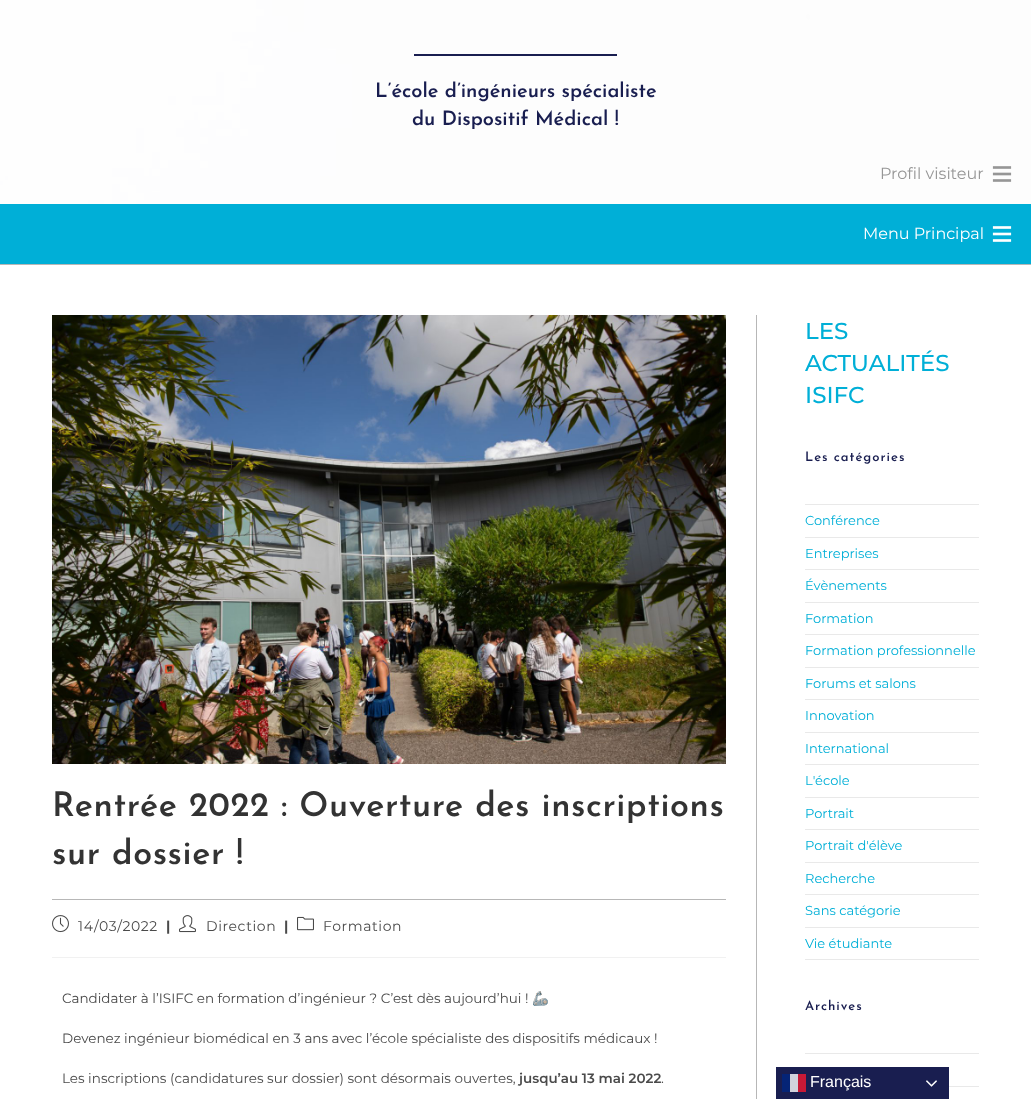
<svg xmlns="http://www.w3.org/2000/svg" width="1031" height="1099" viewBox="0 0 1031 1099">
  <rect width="100%" height="100%" fill="#ffffff"/>
  <rect x="0" y="264" width="1031" height="1" fill="#b7b7b7"/>
  <image x="0" y="0" width="1031" height="204" href="img1.png"/>
  <rect x="414" y="54" width="203" height="2" fill="#191e50"/>
  <text x="375" y="97" font-family="Josefin Sans" font-size="20" font-weight="600" fill="#191e50">L’école d’ingénieurs spécialiste</text>
  <text x="412" y="125" font-family="Josefin Sans" font-size="20" font-weight="600" fill="#191e50">du Dispositif Médical !</text>
  <text x="880" y="179" font-family="Montserrat" font-size="16" fill="#969696">Profil visiteur</text>
  <image x="992" y="166" width="20" height="16" href="img2.png"/>
  <rect x="0" y="204" width="1031" height="60" fill="#00afd7"/>
  <text x="863" y="239" font-family="Montserrat" font-size="16" fill="#ffffff">Menu Principal</text>
  <image x="992" y="226" width="20" height="16" href="img3.png"/>
  <rect x="756" y="315" width="1" height="784" fill="#b7b7b7"/>
  <image x="52" y="315" width="674" height="449" href="img4.png"/>
  <rect x="52" y="899" width="674" height="1" fill="#b7b7b7"/>
  <text x="52" y="816" font-family="Josefin Sans" font-size="34" font-weight="600" letter-spacing="0.6" fill="#333333">Rentrée 2022 : Ouverture des inscriptions</text>
  <text x="52" y="864" font-family="Josefin Sans" font-size="34" font-weight="600" letter-spacing="0.6" fill="#333333">sur dossier !</text>
  <rect x="52" y="957" width="674" height="1" fill="#f1f1f1"/>
  <image x="52" y="915" width="17" height="18" href="img5.png"/>
  <text x="78" y="931" font-family="Montserrat" font-size="14" letter-spacing="0.6" fill="#4a4a4a">14/03/2022</text>
  <text x="166" y="931" font-family="Montserrat" font-size="14" font-weight="bold" letter-spacing="0.6" fill="#4a4a4a">|</text>
  <image x="179" y="915" width="17" height="18" href="img6.png"/>
  <text x="206" y="931" font-family="Montserrat" font-size="14" letter-spacing="0.6" fill="#4a4a4a">Direction</text>
  <text x="284" y="931" font-family="Montserrat" font-size="14" font-weight="bold" letter-spacing="0.6" fill="#4a4a4a">|</text>
  <image x="297" y="916" width="17" height="15" href="img7.png"/>
  <text x="323" y="931" font-family="Montserrat" font-size="14" letter-spacing="0.6" fill="#4a4a4a">Formation</text>
  <text x="62" y="1003" font-family="Montserrat" font-size="13.5" fill="#4a4a4a">Candidater à l’ISIFC en formation d’ingénieur ? C’est dès aujourd’hui !</text>
  <text x="532" y="1003" font-family="Noto Color Emoji" font-size="13.5" fill="#4a4a4a">🦾</text>
  <text x="62" y="1043" font-family="Montserrat" font-size="13.5" fill="#4a4a4a">Devenez ingénieur biomédical en 3 ans avec l’école spécialiste des dispositifs médicaux !</text>
  <text x="62" y="1083" font-family="Montserrat" font-size="13.5" fill="#4a4a4a">Les inscriptions (candidatures sur dossier) sont désormais ouvertes,</text>
  <text x="519" y="1083" font-family="Montserrat" font-size="13.5" font-weight="600" fill="#4a4a4a">jusqu’au 13 mai 2022</text>
  <text x="661" y="1083" font-family="Montserrat" font-size="13.5" fill="#4a4a4a">.</text>
  <text x="805" y="339" font-family="Montserrat" font-size="23" font-weight="500" fill="#00afd7">LES</text>
  <text x="805" y="371" font-family="Montserrat" font-size="23" font-weight="500" fill="#00afd7">ACTUALITÉS</text>
  <text x="805" y="403" font-family="Montserrat" font-size="23" font-weight="500" fill="#00afd7">ISIFC</text>
  <text x="805" y="461" font-family="Josefin Sans" font-size="13" font-weight="600" letter-spacing="1" fill="#191e50">Les catégories</text>
  <rect x="805" y="504" width="174" height="1" fill="#e9e9e9"/>
  <rect x="805" y="537" width="174" height="1" fill="#e9e9e9"/>
  <text x="805" y="525" font-family="Montserrat" font-size="13" fill="#00afd7">Conférence</text>
  <rect x="805" y="569" width="174" height="1" fill="#e9e9e9"/>
  <text x="805" y="558" font-family="Montserrat" font-size="13" fill="#00afd7">Entreprises</text>
  <rect x="805" y="602" width="174" height="1" fill="#e9e9e9"/>
  <text x="805" y="590" font-family="Montserrat" font-size="13" fill="#00afd7">Évènements</text>
  <rect x="805" y="634" width="174" height="1" fill="#e9e9e9"/>
  <text x="805" y="623" font-family="Montserrat" font-size="13" fill="#00afd7">Formation</text>
  <rect x="805" y="667" width="174" height="1" fill="#e9e9e9"/>
  <text x="805" y="655" font-family="Montserrat" font-size="13" fill="#00afd7">Formation professionnelle</text>
  <rect x="805" y="699" width="174" height="1" fill="#e9e9e9"/>
  <text x="805" y="688" font-family="Montserrat" font-size="13" fill="#00afd7">Forums et salons</text>
  <rect x="805" y="732" width="174" height="1" fill="#e9e9e9"/>
  <text x="805" y="720" font-family="Montserrat" font-size="13" fill="#00afd7">Innovation</text>
  <rect x="805" y="764" width="174" height="1" fill="#e9e9e9"/>
  <text x="805" y="753" font-family="Montserrat" font-size="13" fill="#00afd7">International</text>
  <rect x="805" y="797" width="174" height="1" fill="#e9e9e9"/>
  <text x="805" y="785" font-family="Montserrat" font-size="13" fill="#00afd7">L'école</text>
  <rect x="805" y="829" width="174" height="1" fill="#e9e9e9"/>
  <text x="805" y="818" font-family="Montserrat" font-size="13" fill="#00afd7">Portrait</text>
  <rect x="805" y="862" width="174" height="1" fill="#e9e9e9"/>
  <text x="805" y="850" font-family="Montserrat" font-size="13" fill="#00afd7">Portrait d'élève</text>
  <rect x="805" y="894" width="174" height="1" fill="#e9e9e9"/>
  <text x="805" y="883" font-family="Montserrat" font-size="13" fill="#00afd7">Recherche</text>
  <rect x="805" y="927" width="174" height="1" fill="#e9e9e9"/>
  <text x="805" y="915" font-family="Montserrat" font-size="13" fill="#00afd7">Sans catégorie</text>
  <rect x="805" y="959" width="174" height="1" fill="#e9e9e9"/>
  <text x="805" y="948" font-family="Montserrat" font-size="13" fill="#00afd7">Vie étudiante</text>
  <text x="805" y="1010" font-family="Josefin Sans" font-size="13" font-weight="600" letter-spacing="1" fill="#191e50">Archives</text>
  <rect x="805" y="1053" width="174" height="1" fill="#e9e9e9"/>
  <rect x="949" y="1086" width="30" height="1" fill="#e9e9e9"/>
  <rect x="776" y="1067" width="173" height="32" fill="#191e50"/>
  <rect x="782" y="1074" width="8" height="18" fill="#052476"/>
  <rect x="790" y="1074" width="8" height="18" fill="#d1d2dc"/>
  <rect x="798" y="1074" width="8" height="18" fill="#c71936"/>
  <text x="810" y="1087" font-family="Liberation Sans" font-size="16" fill="#ffffff">Français</text>
  <image x="926" y="1080" width="11" height="7" href="img8.png"/>
</svg>
